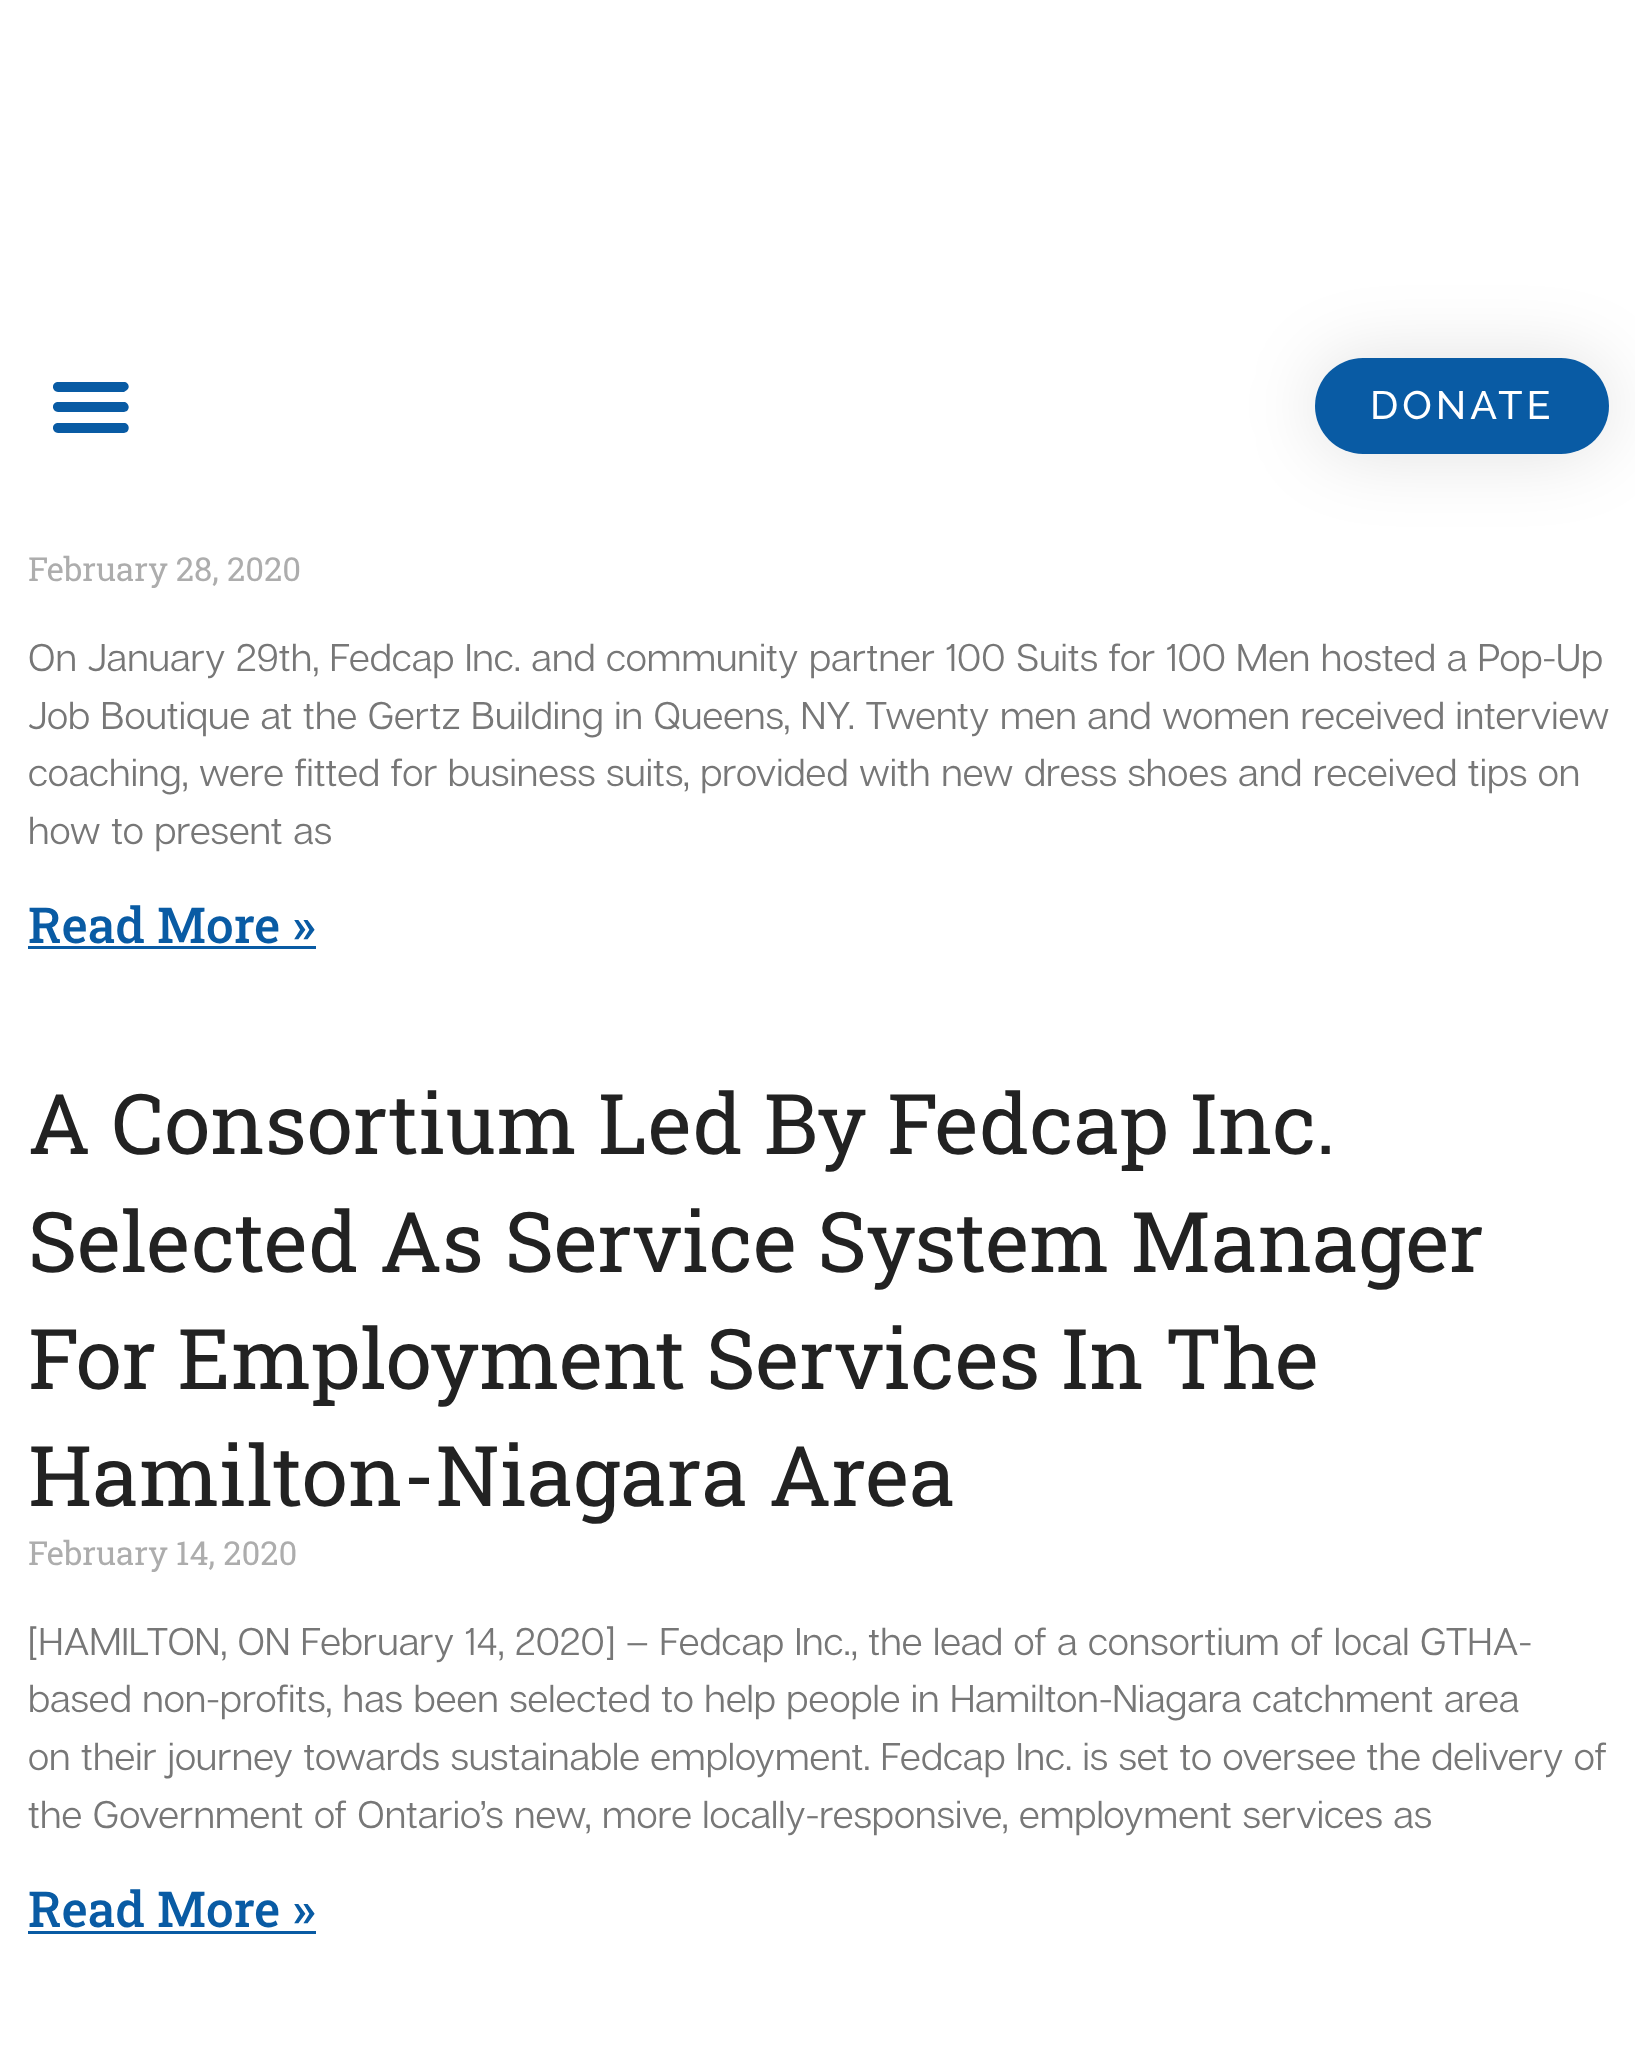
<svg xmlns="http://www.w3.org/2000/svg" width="1635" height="2047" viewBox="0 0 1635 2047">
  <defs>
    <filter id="blur1" x="-50%" y="-200%" width="200%" height="500%"><feGaussianBlur stdDeviation="37"/></filter>
  </defs>
  <rect width="100%" height="100%" fill="#ffffff"/>
  <path d="M58 392H124L127 390C130 388 129 383 125 382H57C51 383 52 392 58 392ZM58 412H124L127 411C130 408 129 404 125 402H57C51 403 52 412 58 412ZM58 433H124L127 432C130 429 129 424 125 423H57C51 424 52 433 58 433Z" fill="#095ba4"/>
  <rect x="1315" y="358" width="294" height="96" rx="48" fill="#000000" fill-opacity="0.12" filter="url(#blur1)"/>
  <rect x="1315" y="358" width="294" height="96" rx="48" fill="#095ba4"/>
  <text x="1370" y="419" font-family="Raleway" font-size="39.5" font-weight="500" letter-spacing="4" fill="#ffffff">DONATE</text>
  <text x="28" y="581" font-family="Roboto Slab" font-size="33" fill="#adadad">February 28, 2020</text>
  <text x="28" y="671" font-family="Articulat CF" font-size="38.5" fill="#777777">On January 29th, Fedcap Inc. and community partner 100 Suits for 100 Men hosted a Pop-Up</text>
  <text x="28" y="729" font-family="Articulat CF" font-size="38.5" fill="#777777">Job Boutique at the Gertz Building in Queens, NY. Twenty men and women received interview</text>
  <text x="28" y="786" font-family="Articulat CF" font-size="38.5" fill="#777777">coaching, were fitted for business suits, provided with new dress shoes and received tips on</text>
  <text x="28" y="844" font-family="Articulat CF" font-size="38.5" fill="#777777">how to present as</text>
  <text x="28" y="943" font-family="Roboto Slab" font-size="49.5" font-weight="500" fill="#095ba4">Read More »</text>
  <rect x="28" y="946" width="288" height="3" fill="#095ba4"/>
  <text x="28" y="1154" font-family="Roboto Slab" font-size="83.7" fill="#222222">A Consortium Led By Fedcap Inc.</text>
  <text x="28" y="1272" font-family="Roboto Slab" font-size="83.7" fill="#222222">Selected As Service System Manager</text>
  <text x="28" y="1389" font-family="Roboto Slab" font-size="83.7" fill="#222222">For Employment Services In The</text>
  <text x="28" y="1506" font-family="Roboto Slab" font-size="83.7" fill="#222222">Hamilton-Niagara Area</text>
  <text x="28" y="1565" font-family="Roboto Slab" font-size="33" fill="#adadad">February 14, 2020</text>
  <text x="28" y="1655" font-family="Articulat CF" font-size="38.5" fill="#777777">[HAMILTON, ON February 14, 2020] – Fedcap Inc., the lead of a consortium of local GTHA-</text>
  <text x="28" y="1712" font-family="Articulat CF" font-size="38.5" fill="#777777">based non-profits, has been selected to help people in Hamilton-Niagara catchment area</text>
  <text x="28" y="1770" font-family="Articulat CF" font-size="38.5" fill="#777777">on their journey towards sustainable employment. Fedcap Inc. is set to oversee the delivery of</text>
  <text x="28" y="1828" font-family="Articulat CF" font-size="38.5" fill="#777777">the Government of Ontario’s new, more locally-responsive, employment services as</text>
  <text x="28" y="1927" font-family="Roboto Slab" font-size="49.5" font-weight="500" fill="#095ba4">Read More »</text>
  <rect x="28" y="1931" width="288" height="3" fill="#095ba4"/>
</svg>
